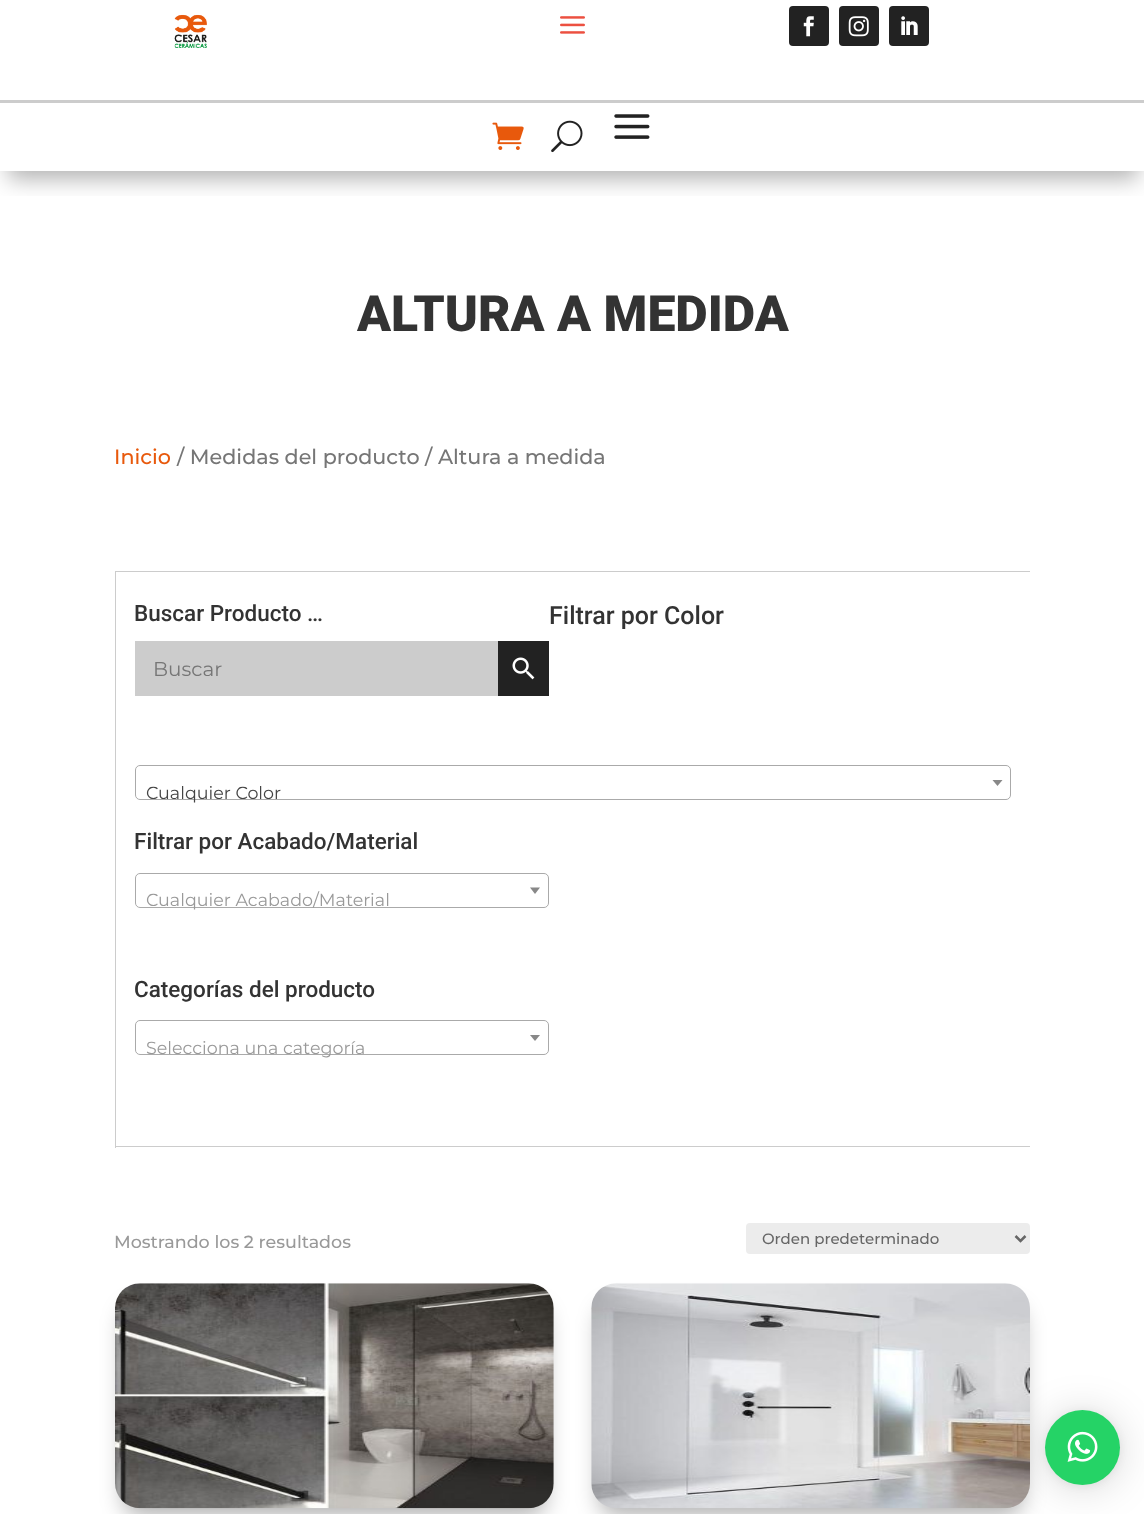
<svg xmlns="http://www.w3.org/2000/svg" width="1144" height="1514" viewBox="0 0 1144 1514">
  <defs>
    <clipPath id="clip1"><rect x="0" y="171" width="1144" height="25"/></clipPath>
    <filter id="blur1" x="-50%" y="-200%" width="200%" height="500%"><feGaussianBlur stdDeviation="11"/></filter>
    <filter id="blur2" x="-50%" y="-200%" width="200%" height="500%"><feGaussianBlur stdDeviation="20"/></filter>
    <filter id="blur3" x="-50%" y="-200%" width="200%" height="500%"><feGaussianBlur stdDeviation="4"/></filter>
  </defs>
  <rect width="100%" height="100%" fill="#ffffff"/>
  <g clip-path="url(#clip1)">
    <rect x="8" y="23" width="1130" height="156" fill="#000000" fill-opacity="0.3" filter="url(#blur1)"/>
  </g>
  <rect x="0" y="100" width="1144" height="3" fill="#cccccc"/>
  <image x="174" y="14" width="33" height="34" href="img1.png"/>
  <image x="560" y="16" width="25" height="18" href="img2.png"/>
  <rect x="789" y="6" width="40" height="40" rx="4" fill="#222222"/>
  <image x="803" y="16" width="11" height="21" href="img3.png"/>
  <rect x="839" y="6" width="40" height="40" rx="4" fill="#222222"/>
  <image x="848" y="16" width="21" height="21" href="img4.png"/>
  <rect x="889" y="6" width="40" height="40" rx="4" fill="#222222"/>
  <image x="901" y="16" width="17" height="19" href="img5.png"/>
  <image x="492" y="122" width="32" height="28" href="img6.png"/>
  <image x="551" y="120" width="32" height="33" href="img7.png"/>
  <image x="614" y="114" width="36" height="25" href="img8.png"/>
  <text x="357" y="331" font-family="Roboto" font-size="50" font-weight="900" fill="#333333">ALTURA A MEDIDA</text>
  <text x="114" y="464" font-family="Montserrat" font-size="20.7" font-weight="100" fill="#e8590c">Inicio</text>
  <text x="177" y="464" font-family="Montserrat" font-size="20.7" font-weight="100" fill="#767676">/ Medidas del producto / Altura a medida</text>
  <rect x="115" y="571" width="915" height="1" fill="#cccccc"/>
  <rect x="115" y="1146" width="915" height="1" fill="#cccccc"/>
  <rect x="115" y="571" width="1" height="577" fill="#cccccc"/>
  <text x="134" y="621" font-family="Roboto" font-size="22.5" font-weight="500" fill="#333333">Buscar Producto …</text>
  <rect x="135" y="641" width="363" height="55" fill="#cccccc"/>
  <text x="153" y="676" font-family="'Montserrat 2'" font-size="20" font-weight="100" fill="#767676">Buscar</text>
  <rect x="498" y="641" width="51" height="55" fill="#222222"/>
  <image x="512" y="657" width="23" height="23" href="img9.png"/>
  <text x="549" y="624" font-family="Roboto" font-size="25" font-weight="500" fill="#333333">Filtrar por Color</text>
  <rect x="135.5" y="765.5" width="875" height="34" rx="4.5" fill="none" stroke="#aaaaaa"/>
  <path d="M992.5 780H1002.5L997.5 786Z" fill="#888888"/>
  <text x="146" y="799" font-family="'Montserrat 2'" font-size="17.5" font-weight="100" fill="#444444">Cualquier Color</text>
  <text x="134" y="849" font-family="Roboto" font-size="22.5" font-weight="500" fill="#333333">Filtrar por Acabado/Material</text>
  <rect x="135.5" y="873.5" width="413" height="34" rx="4.5" fill="none" stroke="#aaaaaa"/>
  <text x="146" y="906" font-family="'Montserrat 2'" font-size="17.5" font-weight="100" fill="#999999">Cualquier Acabado/Material</text>
  <path d="M530 887.5H540L535 894Z" fill="#888888"/>
  <text x="134" y="997" font-family="Roboto" font-size="22.5" font-weight="500" fill="#333333">Categorías del producto</text>
  <rect x="135.5" y="1020.5" width="413" height="34" rx="4.5" fill="none" stroke="#aaaaaa"/>
  <path d="M530 1035H540L535 1041Z" fill="#888888"/>
  <text x="146" y="1054" font-family="'Montserrat 2'" font-size="17.5" font-weight="100" fill="#999999">Selecciona una categoría</text>
  <text x="114" y="1248" font-family="Montserrat" font-size="17.5" font-weight="100" fill="#999999">Mostrando los 2 resultados</text>
  <rect x="746" y="1223" width="284" height="31" rx="4" fill="#ececec"/>
  <path d="M1015.5 1236L1020.5 1241L1025.5 1236" fill="none" stroke="#666666" stroke-width="2.5"/>
  <text x="762" y="1244" font-family="Montserrat" font-size="15" font-weight="100" fill="#666666">Orden predeterminado</text>
  <rect x="123" y="1306" width="423" height="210" rx="18" fill="#000000" fill-opacity="0.3" filter="url(#blur1)"/>
  <image x="115" y="1283" width="439" height="226" href="img10.png"/>
  <rect x="599" y="1306" width="424" height="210" rx="18" fill="#000000" fill-opacity="0.3" filter="url(#blur1)"/>
  <image x="591" y="1283" width="439" height="226" href="img11.png"/>
  <rect x="1045" y="1413" width="75" height="75" rx="37.5" fill="#000000" fill-opacity="0.16" filter="url(#blur2)"/>
  <rect x="1045" y="1411" width="75" height="75" rx="37.5" fill="#000000" fill-opacity="0.06" filter="url(#blur3)"/>
  <circle cx="1082.5" cy="1447.5" r="37.5" fill="#25d366"/>
  <image x="1067" y="1431" width="31" height="31" href="img12.png"/>
</svg>
